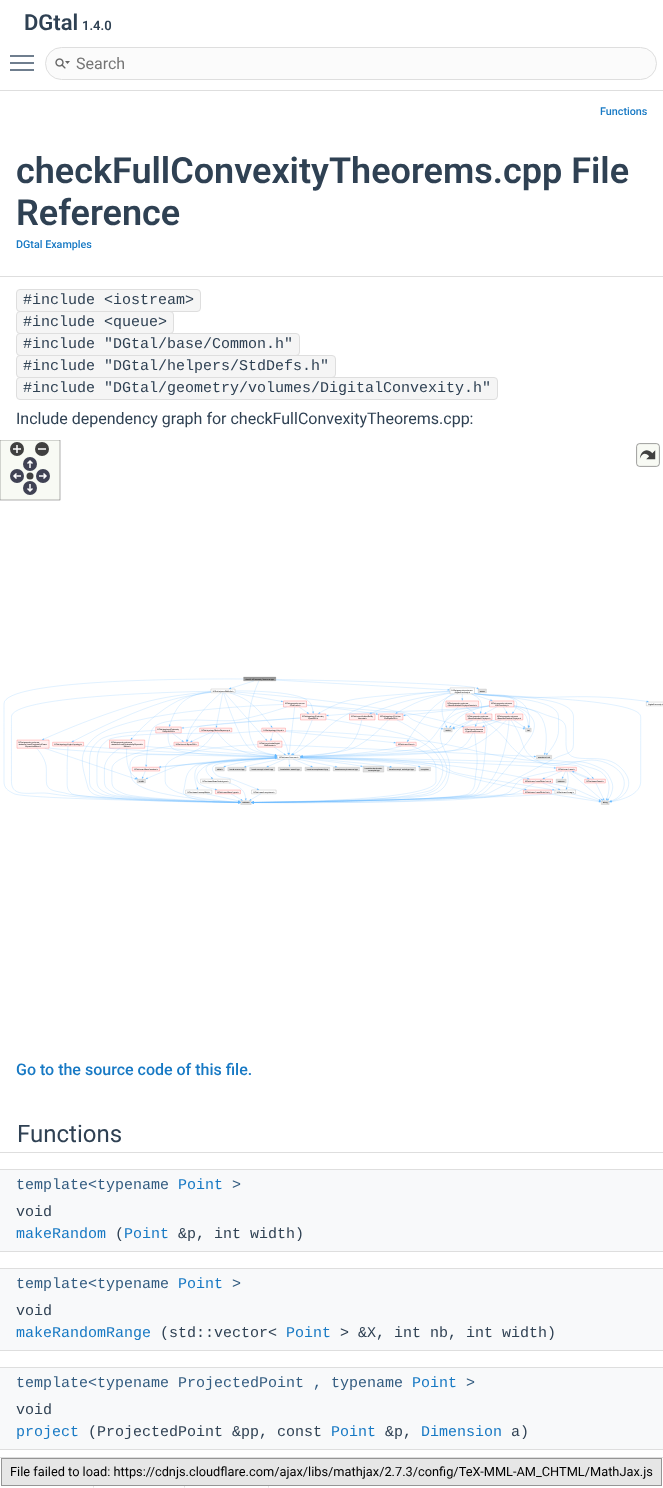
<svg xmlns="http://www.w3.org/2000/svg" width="663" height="1488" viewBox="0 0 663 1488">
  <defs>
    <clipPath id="clip1"><rect x="0" y="1458" width="663" height="30"/></clipPath>
  </defs>
  <rect width="100%" height="100%" fill="#ffffff"/>
  <rect x="0" y="90" width="663" height="1" fill="#dedede"/>
  <text x="24" y="30" font-family="Roboto" font-size="22" font-weight="600" fill="#2f4153">DGtal</text>
  <text x="82" y="30" font-family="Roboto" font-size="13" font-weight="600" fill="#2f4153">1.4.0</text>
  <rect x="10" y="62" width="24" height="2" fill="#6f7e8e"/>
  <rect x="10" y="55" width="24" height="2" fill="#6f7e8e"/>
  <rect x="10" y="69" width="24" height="2" fill="#6f7e8e"/>
  <rect x="45.5" y="47.5" width="611" height="32" rx="16" fill="#fbfbfb" stroke="#dedede"/>
  <image x="55" y="58" width="15" height="11" href="img1.png"/>
  <text x="76" y="69" font-family="Roboto" font-size="16" fill="#757575">Search</text>
  <rect x="0" y="276" width="663" height="1" fill="#dedede"/>
  <text x="600" y="115" font-family="Roboto" font-size="10.75" font-weight="500" fill="#1779c4">Functions</text>
  <text x="16" y="183" font-family="Roboto" font-size="36" font-weight="600" fill="#2f4153">checkFullConvexityTheorems.cpp File</text>
  <text x="16" y="225" font-family="Roboto" font-size="36" font-weight="600" fill="#2f4153">Reference</text>
  <text x="16" y="248" font-family="Roboto" font-size="10.75" font-weight="500" fill="#1779c4">DGtal Examples</text>
  <rect x="16.5" y="289.5" width="184" height="22" rx="3.5" fill="#f5f5f5" stroke="#dedede"/>
  <text x="23" y="304" font-family="Liberation Mono" font-size="15" fill="#2f4153">#include &lt;iostream&gt;</text>
  <rect x="16.5" y="311.5" width="157" height="22" rx="3.5" fill="#f5f5f5" stroke="#dedede"/>
  <text x="23" y="326" font-family="Liberation Mono" font-size="15" fill="#2f4153">#include &lt;queue&gt;</text>
  <rect x="16.5" y="333.5" width="283" height="22" rx="3.5" fill="#f5f5f5" stroke="#dedede"/>
  <text x="23" y="348" font-family="Liberation Mono" font-size="15" fill="#2f4153">#include "DGtal/base/Common.h"</text>
  <rect x="16.5" y="355.5" width="319" height="22" rx="3.5" fill="#f5f5f5" stroke="#dedede"/>
  <text x="23" y="370" font-family="Liberation Mono" font-size="15" fill="#2f4153">#include "DGtal/helpers/StdDefs.h"</text>
  <rect x="16.5" y="377.5" width="481" height="22" rx="3.5" fill="#f5f5f5" stroke="#dedede"/>
  <text x="23" y="392" font-family="Liberation Mono" font-size="15" fill="#2f4153">#include "DGtal/geometry/volumes/DigitalConvexity.h"</text>
  <text x="16" y="424" font-family="Roboto" font-size="16" fill="#2f4153">Include dependency graph for checkFullConvexityTheorems.cpp:</text>
  <image x="0" y="440" width="663" height="365" href="img2.png"/>
  <text x="16" y="1075" font-family="Roboto" font-size="16" font-weight="500" fill="#1779c4">Go to the source code of this file.</text>
  <path d="M-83 1113V1153H546V1152H17V1113Z" fill="#dedede"/>
  <path d="M117 1152V1153H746V1113H646V1152Z" fill="#dedede"/>
  <rect x="0" y="1113" width="17" height="39" fill="#ffffff"/>
  <rect x="646" y="1113" width="17" height="39" fill="#ffffff"/>
  <text x="17" y="1142" font-family="Roboto" font-size="24" fill="#2f4153">Functions</text>
  <rect x="0" y="1170" width="663" height="81" fill="#f8f9fa"/>
  <rect x="0" y="1169" width="663" height="1" fill="#dedede"/>
  <text x="16" y="1189" font-family="Liberation Mono" font-size="15" fill="#335c80">template&lt;typename</text>
  <text x="178" y="1189" font-family="Liberation Mono" font-size="15" fill="#1779c4">Point</text>
  <text x="232" y="1189" font-family="Liberation Mono" font-size="15" fill="#335c80">&gt;</text>
  <text x="16" y="1216" font-family="Liberation Mono" font-size="15" fill="#2f4153">void</text>
  <rect x="0" y="1251" width="663" height="1" fill="#dedede"/>
  <text x="16" y="1238" font-family="Liberation Mono" font-size="15" fill="#1779c4">makeRandom</text>
  <text x="115" y="1238" font-family="Liberation Mono" font-size="15" fill="#2f4153">(</text>
  <text x="124" y="1238" font-family="Liberation Mono" font-size="15" fill="#1779c4">Point</text>
  <text x="178" y="1238" font-family="Liberation Mono" font-size="15" fill="#2f4153">&amp;p, int width)</text>
  <rect x="0" y="1269" width="663" height="81" fill="#f8f9fa"/>
  <rect x="0" y="1268" width="663" height="1" fill="#dedede"/>
  <text x="16" y="1288" font-family="Liberation Mono" font-size="15" fill="#335c80">template&lt;typename</text>
  <text x="178" y="1288" font-family="Liberation Mono" font-size="15" fill="#1779c4">Point</text>
  <text x="232" y="1288" font-family="Liberation Mono" font-size="15" fill="#335c80">&gt;</text>
  <text x="16" y="1315" font-family="Liberation Mono" font-size="15" fill="#2f4153">void</text>
  <rect x="0" y="1350" width="663" height="1" fill="#dedede"/>
  <text x="16" y="1337" font-family="Liberation Mono" font-size="15" fill="#1779c4">makeRandomRange</text>
  <text x="160" y="1337" font-family="Liberation Mono" font-size="15" fill="#2f4153">(std::vector&lt;</text>
  <text x="286" y="1337" font-family="Liberation Mono" font-size="15" fill="#1779c4">Point</text>
  <text x="340" y="1337" font-family="Liberation Mono" font-size="15" fill="#2f4153">&gt; &amp;X, int nb, int width)</text>
  <rect x="0" y="1368" width="663" height="81" fill="#f8f9fa"/>
  <rect x="0" y="1367" width="663" height="1" fill="#dedede"/>
  <text x="16" y="1387" font-family="Liberation Mono" font-size="15" fill="#335c80">template&lt;typename ProjectedPoint , typename</text>
  <text x="412" y="1387" font-family="Liberation Mono" font-size="15" fill="#1779c4">Point</text>
  <text x="466" y="1387" font-family="Liberation Mono" font-size="15" fill="#335c80">&gt;</text>
  <text x="16" y="1414" font-family="Liberation Mono" font-size="15" fill="#2f4153">void</text>
  <rect x="0" y="1449" width="663" height="1" fill="#dedede"/>
  <text x="16" y="1436" font-family="Liberation Mono" font-size="15" fill="#1779c4">project</text>
  <text x="88" y="1436" font-family="Liberation Mono" font-size="15" fill="#2f4153">(ProjectedPoint &amp;pp, const</text>
  <text x="331" y="1436" font-family="Liberation Mono" font-size="15" fill="#1779c4">Point</text>
  <text x="385" y="1436" font-family="Liberation Mono" font-size="15" fill="#2f4153">&amp;p,</text>
  <text x="421" y="1436" font-family="Liberation Mono" font-size="15" fill="#1779c4">Dimension</text>
  <text x="511" y="1436" font-family="Liberation Mono" font-size="15" fill="#2f4153">a)</text>
  <rect x="0" y="1457" width="663" height="1" fill="#dedede"/>
  <path d="M93 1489V1457L98 1473Z" fill="#dedede"/>
  <g clip-path="url(#clip1)">
    <path d="M91 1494V1452L96 1473Z" fill="#ffffff"/>
  </g>
  <path d="M184 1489V1457L189 1473Z" fill="#dedede"/>
  <g clip-path="url(#clip1)">
    <path d="M182 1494V1452L187 1473Z" fill="#ffffff"/>
  </g>
  <path d="M268 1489V1457L273 1473Z" fill="#dedede"/>
  <g clip-path="url(#clip1)">
    <path d="M266 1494V1452L271 1473Z" fill="#ffffff"/>
  </g>
  <rect x="1.5" y="1458.5" width="660" height="27" fill="#e6e6e6" stroke="#959595"/>
  <text x="10" y="1476" font-family="Roboto" font-size="12.8" fill="#000000">File failed to load: https://cdnjs.cloudflare.com/ajax/libs/mathjax/2.7.3/config/TeX-MML-AM_CHTML/MathJax.js</text>
</svg>
